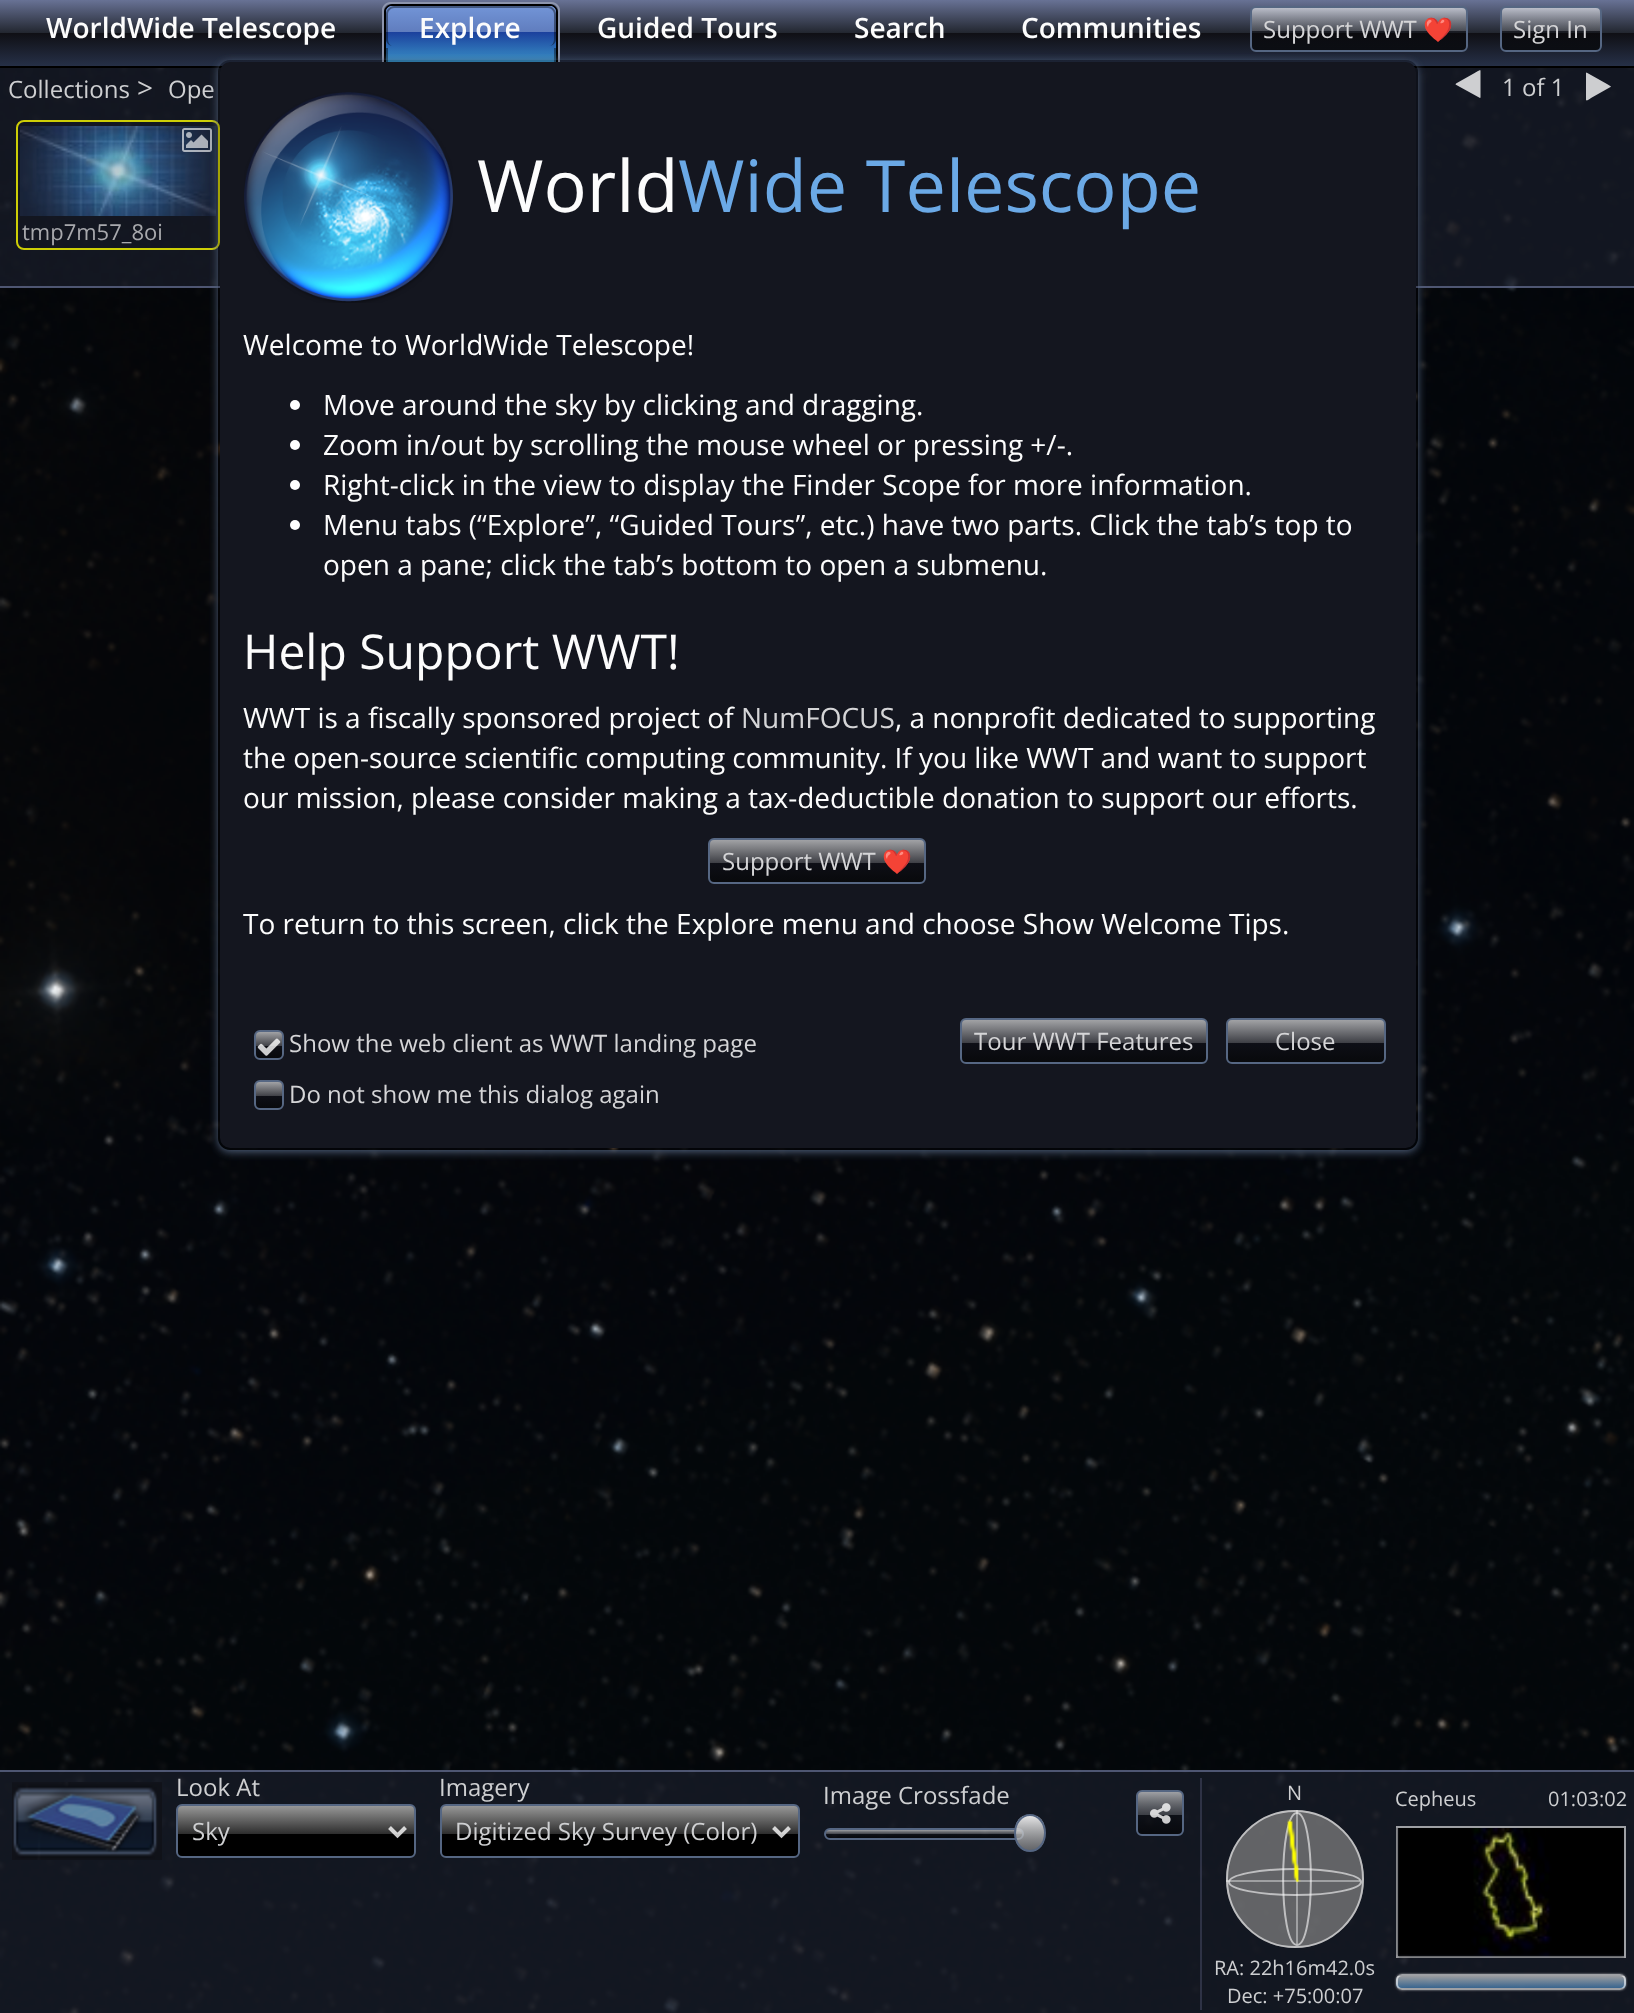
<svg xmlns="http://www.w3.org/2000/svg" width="1634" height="2013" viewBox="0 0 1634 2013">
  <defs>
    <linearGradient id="g1" gradientUnits="userSpaceOnUse" x1="817" y1="0" x2="817" y2="66"><stop offset="0" stop-color="#687295"/><stop offset="0.5" stop-color="#22262f"/><stop offset="0.5" stop-color="#0f0f14"/><stop offset="1" stop-color="#263047"/></linearGradient>
    <linearGradient id="g2" gradientUnits="userSpaceOnUse" x1="471" y1="-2" x2="471" y2="66"><stop offset="0" stop-color="#789cdf"/><stop offset="0.5" stop-color="#607dbe"/><stop offset="0.5" stop-color="#1b409d"/><stop offset="1" stop-color="#3d9bcc"/></linearGradient>
    <linearGradient id="g3" gradientUnits="userSpaceOnUse" x1="1359" y1="8" x2="1359" y2="50"><stop offset="0" stop-color="#fcfcfc" stop-opacity="0.6"/><stop offset="0.55" stop-color="#999999" stop-opacity="0.3"/><stop offset="0.55" stop-color="#000000" stop-opacity="0.3"/><stop offset="1" stop-color="#000000" stop-opacity="0.6"/></linearGradient>
    <linearGradient id="g4" gradientUnits="userSpaceOnUse" x1="1551" y1="8" x2="1551" y2="50"><stop offset="0" stop-color="#fcfcfc" stop-opacity="0.6"/><stop offset="0.55" stop-color="#999999" stop-opacity="0.3"/><stop offset="0.55" stop-color="#000000" stop-opacity="0.3"/><stop offset="1" stop-color="#000000" stop-opacity="0.6"/></linearGradient>
    <clipPath id="clip1"><path d="M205 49H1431V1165H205ZM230 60H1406C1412.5 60 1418 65.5 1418 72V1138C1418 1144.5 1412.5 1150 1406 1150H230C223.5 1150 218 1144.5 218 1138V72C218 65.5 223.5 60 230 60Z" clip-rule="evenodd"/></clipPath>
    <filter id="blur1" x="-50%" y="-200%" width="200%" height="500%"><feGaussianBlur stdDeviation="4"/></filter>
    <linearGradient id="g5" gradientUnits="userSpaceOnUse" x1="817" y1="840" x2="817" y2="882"><stop offset="0" stop-color="#a1a2a5"/><stop offset="0.55" stop-color="#3d3e44"/><stop offset="0.55" stop-color="#0e0f16"/><stop offset="1" stop-color="#08090c"/></linearGradient>
    <linearGradient id="g6" gradientUnits="userSpaceOnUse" x1="269" y1="1032" x2="269" y2="1058"><stop offset="0" stop-color="#a1a2a5"/><stop offset="0.55" stop-color="#3d3e44"/><stop offset="0.55" stop-color="#0e0f16"/><stop offset="1" stop-color="#08090c"/></linearGradient>
    <linearGradient id="g7" gradientUnits="userSpaceOnUse" x1="269" y1="1082" x2="269" y2="1108"><stop offset="0" stop-color="#a1a2a5"/><stop offset="0.55" stop-color="#3d3e44"/><stop offset="0.55" stop-color="#0e0f16"/><stop offset="1" stop-color="#08090c"/></linearGradient>
    <linearGradient id="g8" gradientUnits="userSpaceOnUse" x1="1084" y1="1020" x2="1084" y2="1062"><stop offset="0" stop-color="#a1a2a5"/><stop offset="0.55" stop-color="#3d3e44"/><stop offset="0.55" stop-color="#0e0f16"/><stop offset="1" stop-color="#08090c"/></linearGradient>
    <linearGradient id="g9" gradientUnits="userSpaceOnUse" x1="1306" y1="1020" x2="1306" y2="1062"><stop offset="0" stop-color="#a1a2a5"/><stop offset="0.55" stop-color="#3d3e44"/><stop offset="0.55" stop-color="#0e0f16"/><stop offset="1" stop-color="#08090c"/></linearGradient>
    <linearGradient id="g10" gradientUnits="userSpaceOnUse" x1="296" y1="1806" x2="296" y2="1856"><stop offset="0" stop-color="#979797"/><stop offset="0.55" stop-color="#2f2f2f"/><stop offset="0.55" stop-color="#000000"/><stop offset="1" stop-color="#000000"/></linearGradient>
    <linearGradient id="g11" gradientUnits="userSpaceOnUse" x1="620" y1="1806" x2="620" y2="1856"><stop offset="0" stop-color="#979797"/><stop offset="0.55" stop-color="#2f2f2f"/><stop offset="0.55" stop-color="#000000"/><stop offset="1" stop-color="#000000"/></linearGradient>
    <linearGradient id="g12" gradientUnits="userSpaceOnUse" x1="924" y1="1830" x2="924" y2="1838"><stop offset="0" stop-color="#fcfcfc" stop-opacity="0.6"/><stop offset="0.55" stop-color="#999999" stop-opacity="0.3"/><stop offset="0.55" stop-color="#000000" stop-opacity="0.3"/><stop offset="1" stop-color="#000000" stop-opacity="0.6"/></linearGradient>
    <linearGradient id="g13" gradientUnits="userSpaceOnUse" x1="1030" y1="1816" x2="1030" y2="1850"><stop offset="0" stop-color="#fcfcfc" stop-opacity="0.9"/><stop offset="1" stop-color="#999999" stop-opacity="0.6"/><stop offset="1" stop-color="#000000"/></linearGradient>
    <linearGradient id="g14" gradientUnits="userSpaceOnUse" x1="1160" y1="1792" x2="1160" y2="1834"><stop offset="0" stop-color="#fcfcfc" stop-opacity="0.6"/><stop offset="0.55" stop-color="#999999" stop-opacity="0.3"/><stop offset="0.55" stop-color="#000000" stop-opacity="0.3"/><stop offset="1" stop-color="#000000" stop-opacity="0.6"/></linearGradient>
    <clipPath id="clip2"><path d="M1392 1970H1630V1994H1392ZM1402 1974H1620C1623.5 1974 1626 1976.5 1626 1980V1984C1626 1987.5 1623.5 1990 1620 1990H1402C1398.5 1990 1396 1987.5 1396 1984V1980C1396 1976.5 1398.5 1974 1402 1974Z" clip-rule="evenodd"/></clipPath>
    <filter id="blur2" x="-50%" y="-200%" width="200%" height="500%"><feGaussianBlur stdDeviation="1"/></filter>
    <clipPath id="clip3"><rect x="1396" y="1974" width="230" height="16" rx="6"/></clipPath>
    <linearGradient id="g15" gradientUnits="userSpaceOnUse" x1="1511" y1="1976" x2="1511" y2="1988"><stop offset="0" stop-color="#d5d5d5" stop-opacity="0.7"/><stop offset="1" stop-color="#4886be" stop-opacity="0.7"/></linearGradient>
  </defs>
  <rect width="100%" height="100%" fill="#ffffff"/>
  <rect x="0" y="0" width="1634" height="66" fill="url(#g1)"/>
  <rect x="0" y="66" width="1634" height="2" fill="#000000"/>
  <text x="46" y="38" font-family="Open Sans" font-size="28" font-weight="600" fill="#fcfcfc">WorldWide Telescope</text>
  <path d="M390 2H552C556 2 560 6 560 10V74H382V10C382 6 386 2 390 2ZM390 4H552C555 4 558 7 558 10V74H384V10C384 7 387 4 390 4Z" fill="#8d95ad" fill-rule="evenodd"/>
  <path d="M392 4H550C554 4 558 8 558 12V74H384V12C384 8 388 4 392 4ZM392 6H550C553 6 556 9 556 12V74H386V12C386 9 389 6 392 6Z" fill="#000000" fill-rule="evenodd"/>
  <path d="M392 6H550C553.5 6 556 8.5 556 12V66H386V12C386 8.5 388.5 6 392 6Z" fill="url(#g2)"/>
  <path d="M394 6H548C552 6 556 10 556 14V39C556 43 553 46 549 46H393C389 46 386 43 386 39V14C386 10 390 6 394 6ZM394 8H548C551 8 554 11 554 14V39C554 43 552 46 549 46H393C390 46 388 43 388 39V14C388 11 391 8 394 8Z" fill="#000000" fill-opacity="0.4" fill-rule="evenodd"/>
  <text x="419" y="38" font-family="Open Sans" font-size="28" font-weight="600" fill="#fcfcfc">Explore</text>
  <rect x="554" y="48" width="2" height="18" fill="#000000" fill-opacity="0.4"/>
  <rect x="386" y="48" width="2" height="18" fill="#000000" fill-opacity="0.4"/>
  <text x="597" y="38" font-family="Open Sans" font-size="28" font-weight="600" fill="#fcfcfc">Guided Tours</text>
  <text x="854" y="38" font-family="Open Sans" font-size="28" font-weight="600" fill="#fcfcfc">Search</text>
  <text x="1021" y="38" font-family="Open Sans" font-size="28" font-weight="600" fill="#fcfcfc">Communities</text>
  <rect x="1252" y="8" width="214" height="42" fill="url(#g3)"/>
  <rect x="1251" y="7" width="216" height="44" rx="5" fill="none" stroke="#556682" stroke-width="2"/>
  <text x="1263" y="38" font-family="Open Sans" font-size="24" fill="#d5d5d7">Support WWT</text>
  <text x="1423" y="38" font-family="Noto Color Emoji" font-size="24" fill="#d5d5d7">❤️</text>
  <rect x="1502" y="8" width="98" height="42" fill="url(#g4)"/>
  <rect x="1501" y="7" width="100" height="44" rx="5" fill="none" stroke="#556682" stroke-width="2"/>
  <text x="1513" y="38" font-family="Open Sans" font-size="24" fill="#d5d5d7">Sign In</text>
  <image x="0" y="68" width="1634" height="1945" href="img9.png"/>
  <rect x="0" y="68" width="1634" height="220" fill="#191e2b" fill-opacity="0.7"/>
  <rect x="0" y="286" width="1634" height="2" fill="#687295" fill-opacity="0.7"/>
  <text x="8" y="98" font-family="Open Sans" font-size="24" fill="#cecfd1">Collections</text>
  <text x="137" y="98" font-family="Open Sans" font-size="28" fill="#cecfd1">&gt;</text>
  <text x="168" y="98" font-family="Open Sans" font-size="24" fill="#cecfd1">Ope</text>
  <path d="M1456 83.5L1475.5 72.5C1476 72.5 1480 69.5 1480.5 70.5V97.5L1480 98L1460 87L1455.5 84.5Z" fill="#cecfd1"/>
  <text x="1502" y="96" font-family="Open Sans" font-size="24" fill="#cecfd1">1 of 1</text>
  <path d="M1610.5 87L1591 98C1590.5 98.5 1587 101.5 1586 100V73L1586.5 72.5L1607 84L1611 86.5Z" fill="#fcfcfc" fill-opacity="0.8"/>
  <rect x="17" y="121" width="202" height="128" rx="7" fill="none" stroke="#fcfc00" stroke-opacity="0.8" stroke-width="2"/>
  <image x="20" y="126" width="196" height="90" href="img1.png"/>
  <image x="182" y="128" width="30" height="24" href="img2.png"/>
  <text x="22" y="240" font-family="Open Sans" font-size="22" fill="#a8a9ad">tmp7m57_8oi</text>
  <g clip-path="url(#clip1)">
    <rect x="218" y="62" width="1200" height="1090" rx="12" fill="#4d5d77" filter="url(#blur1)"/>
  </g>
  <rect x="220" y="62" width="1196" height="1086" rx="10" fill="#14161f"/>
  <rect x="219" y="61" width="1198" height="1088" rx="11" fill="none" stroke="#000000" stroke-opacity="0.2" stroke-width="2"/>
  <image x="244" y="92" width="209" height="211" href="img3.png"/>
  <text x="477" y="212" font-family="Open Sans" font-size="72" fill="#fcfcfc">World</text>
  <text x="678" y="212" font-family="Open Sans" font-size="72" fill="#6ba9e6">Wide Telescope</text>
  <text x="243" y="355" font-family="Open Sans" font-size="28" fill="#fcfcfc">Welcome to WorldWide Telescope!</text>
  <circle cx="295" cy="405" r="5" fill="#ffffff"/>
  <text x="323" y="415" font-family="Open Sans" font-size="28" fill="#fcfcfc">Move around the sky by clicking and dragging.</text>
  <circle cx="295" cy="445" r="5" fill="#ffffff"/>
  <text x="323" y="455" font-family="Open Sans" font-size="28" fill="#fcfcfc">Zoom in/out by scrolling the mouse wheel or pressing +/-.</text>
  <circle cx="295" cy="485" r="5" fill="#ffffff"/>
  <text x="323" y="495" font-family="Open Sans" font-size="28" fill="#fcfcfc">Right-click in the view to display the Finder Scope for more information.</text>
  <circle cx="295" cy="525" r="5" fill="#ffffff"/>
  <text x="323" y="535" font-family="Open Sans" font-size="28" fill="#fcfcfc">Menu tabs (“Explore”, “Guided Tours”, etc.) have two parts. Click the tab’s top to</text>
  <text x="323" y="575" font-family="Open Sans" font-size="28" fill="#fcfcfc">open a pane; click the tab’s bottom to open a submenu.</text>
  <text x="243" y="669" font-family="Open Sans" font-size="48" fill="#fcfcfc">Help Support WWT!</text>
  <text x="243" y="728" font-family="Open Sans" font-size="28" fill="#fcfcfc">WWT is a fiscally sponsored project of</text>
  <text x="741" y="728" font-family="Open Sans" font-size="28" fill="#d5d5d7">NumFOCUS</text>
  <text x="895" y="728" font-family="Open Sans" font-size="28" fill="#fcfcfc">, a nonprofit dedicated to supporting</text>
  <text x="243" y="768" font-family="Open Sans" font-size="28" fill="#fcfcfc">the open-source scientific computing community. If you like WWT and want to support</text>
  <text x="243" y="808" font-family="Open Sans" font-size="28" fill="#fcfcfc">our mission, please consider making a tax-deductible donation to support our efforts.</text>
  <rect x="710" y="840" width="214" height="42" fill="url(#g5)"/>
  <rect x="709" y="839" width="216" height="44" rx="5" fill="none" stroke="#566783" stroke-width="2"/>
  <text x="722" y="870" font-family="Open Sans" font-size="24" fill="#d5d5d7">Support WWT</text>
  <text x="882" y="870" font-family="Noto Color Emoji" font-size="24" fill="#d5d5d7">❤️</text>
  <text x="243" y="934" font-family="Open Sans" font-size="28" fill="#fcfcfc">To return to this screen, click the Explore menu and choose Show Welcome Tips.</text>
  <rect x="256" y="1032" width="26" height="26" fill="url(#g6)"/>
  <rect x="255" y="1031" width="28" height="28" rx="5" fill="none" stroke="#566783" stroke-width="2"/>
  <image x="257" y="1038" width="24" height="18" href="img4.png"/>
  <text x="289" y="1052" font-family="Open Sans" font-size="24" fill="#d5d5d7">Show the web client as WWT landing page</text>
  <rect x="256" y="1082" width="26" height="26" fill="url(#g7)"/>
  <rect x="255" y="1081" width="28" height="28" rx="5" fill="none" stroke="#566783" stroke-width="2"/>
  <text x="289" y="1103" font-family="Open Sans" font-size="24" fill="#d5d5d7">Do not show me this dialog again</text>
  <rect x="962" y="1020" width="244" height="42" fill="url(#g8)"/>
  <rect x="961" y="1019" width="246" height="44" rx="5" fill="none" stroke="#566783" stroke-width="2"/>
  <text x="974" y="1050" font-family="Open Sans" font-size="24" fill="#d5d5d7">Tour WWT Features</text>
  <rect x="1228" y="1020" width="156" height="42" fill="url(#g9)"/>
  <rect x="1227" y="1019" width="158" height="44" rx="5" fill="none" stroke="#566783" stroke-width="2"/>
  <text x="1275" y="1050" font-family="Open Sans" font-size="24" fill="#d5d5d7">Close</text>
  <rect x="0" y="1770" width="1634" height="243" fill="#191e2b" fill-opacity="0.7"/>
  <rect x="0" y="1770" width="1634" height="2" fill="#687295" fill-opacity="0.7"/>
  <image x="12" y="1782" width="150" height="78" href="img5.png"/>
  <text x="176" y="1796" font-family="Open Sans" font-size="24" fill="#cecfd1">Look At</text>
  <rect x="178" y="1806" width="236" height="50" fill="url(#g10)"/>
  <rect x="177" y="1805" width="238" height="52" rx="5" fill="none" stroke="#556682" stroke-width="2"/>
  <path d="M389.5 1827.5L397.5 1835.5L405.5 1827.5" fill="none" stroke="#fcfcfc" stroke-opacity="0.8" stroke-width="4"/>
  <text x="192" y="1840" font-family="Open Sans" font-size="24" fill="#cecfd1">Sky</text>
  <text x="439" y="1796" font-family="Open Sans" font-size="24" fill="#cecfd1">Imagery</text>
  <rect x="442" y="1806" width="356" height="50" fill="url(#g11)"/>
  <rect x="441" y="1805" width="358" height="52" rx="5" fill="none" stroke="#556682" stroke-width="2"/>
  <path d="M773.5 1827.5L781.5 1835.5L789.5 1827.5" fill="none" stroke="#fcfcfc" stroke-opacity="0.8" stroke-width="4"/>
  <text x="455" y="1840" font-family="Open Sans" font-size="24" fill="#cecfd1">Digitized Sky Survey (Color)</text>
  <text x="823" y="1804" font-family="Open Sans" font-size="24" fill="#cecfd1">Image Crossfade</text>
  <rect x="826" y="1830" width="196" height="8" fill="url(#g12)"/>
  <rect x="825" y="1829" width="198" height="10" rx="5" fill="none" stroke="#556682" stroke-width="2"/>
  <path d="M1016 1824C1017.5 1820.5 1020 1817.5 1023 1816H1037C1040 1817.5 1042.5 1820.5 1044 1824V1842C1042.5 1845.5 1040 1848.5 1037 1850H1023C1020 1848.5 1017.5 1845.5 1016 1842Z" fill="url(#g13)"/>
  <path d="M1030 1815C1038.5 1815 1045 1823 1045 1833C1045 1843 1038.5 1851 1030 1851C1021.5 1851 1015 1843 1015 1833C1015 1823 1021.5 1815 1030 1815Z" fill="none" stroke="#556682" stroke-width="2"/>
  <rect x="1200" y="1778" width="2" height="232" fill="#3a3f56" fill-opacity="0.7"/>
  <rect x="1138" y="1792" width="44" height="42" fill="url(#g14)"/>
  <rect x="1137" y="1791" width="46" height="44" rx="5" fill="none" stroke="#556682" stroke-width="2"/>
  <image x="1150" y="1803" width="21" height="21" href="img6.png"/>
  <text x="1287" y="1800" font-family="Open Sans" font-size="20" fill="#cecfd1">N</text>
  <circle cx="1295" cy="1879" r="69" fill="#848484" fill-opacity="0.7"/>
  <circle cx="1295" cy="1879" r="68" fill="none" stroke="#fcfcfc" stroke-opacity="0.6" stroke-width="2"/>
  <path d="M1297 1813C1315.5 1813 1315.5 1945 1297 1945C1278.5 1945 1278.5 1813 1297 1813Z" fill="none" stroke="#fcfcfc" stroke-opacity="0.6" stroke-width="2"/>
  <path d="M1295 1869C1331.5 1869 1361 1875 1361 1882C1361 1889 1331.5 1895 1295 1895C1258.5 1895 1229 1889 1229 1882C1229 1875 1258.5 1869 1295 1869Z" fill="none" stroke="#fcfcfc" stroke-opacity="0.6" stroke-width="2"/>
  <rect x="1226" y="1880" width="134" height="2" fill="#fcfcfc" fill-opacity="0.4"/>
  <rect x="1296" y="1810" width="2" height="134" fill="#fcfcfc" fill-opacity="0.4"/>
  <image x="1287" y="1819" width="14" height="64" href="img7.png"/>
  <text x="1214" y="1975" font-family="Open Sans" font-size="20" fill="#cecfd1">RA: 22h16m42.0s</text>
  <text x="1227" y="2003" font-family="Open Sans" font-size="20" fill="#cecfd1">Dec: +75:00:07</text>
  <text x="1395" y="1806" font-family="Open Sans" font-size="20" fill="#cecfd1">Cepheus</text>
  <text x="1548" y="1806" font-family="Open Sans" font-size="20" fill="#cecfd1">01:03:02</text>
  <rect x="1397" y="1827" width="228" height="130" fill="none" stroke="#fcfcfc" stroke-opacity="0.6" stroke-width="2"/>
  <image x="1396" y="1828" width="228" height="130" href="img8.png"/>
  <g clip-path="url(#clip2)">
    <rect x="1396" y="1974" width="230" height="16" rx="6" fill="#fcfcfc" fill-opacity="0.6" filter="url(#blur2)"/>
  </g>
  <g clip-path="url(#clip3)">
    <rect x="1396" y="1976" width="230" height="12" fill="url(#g15)"/>
  </g>
  <rect x="1397" y="1975" width="228" height="14" rx="5" fill="none" stroke="#fcfcfc" stroke-opacity="0.6" stroke-width="2"/>
</svg>
